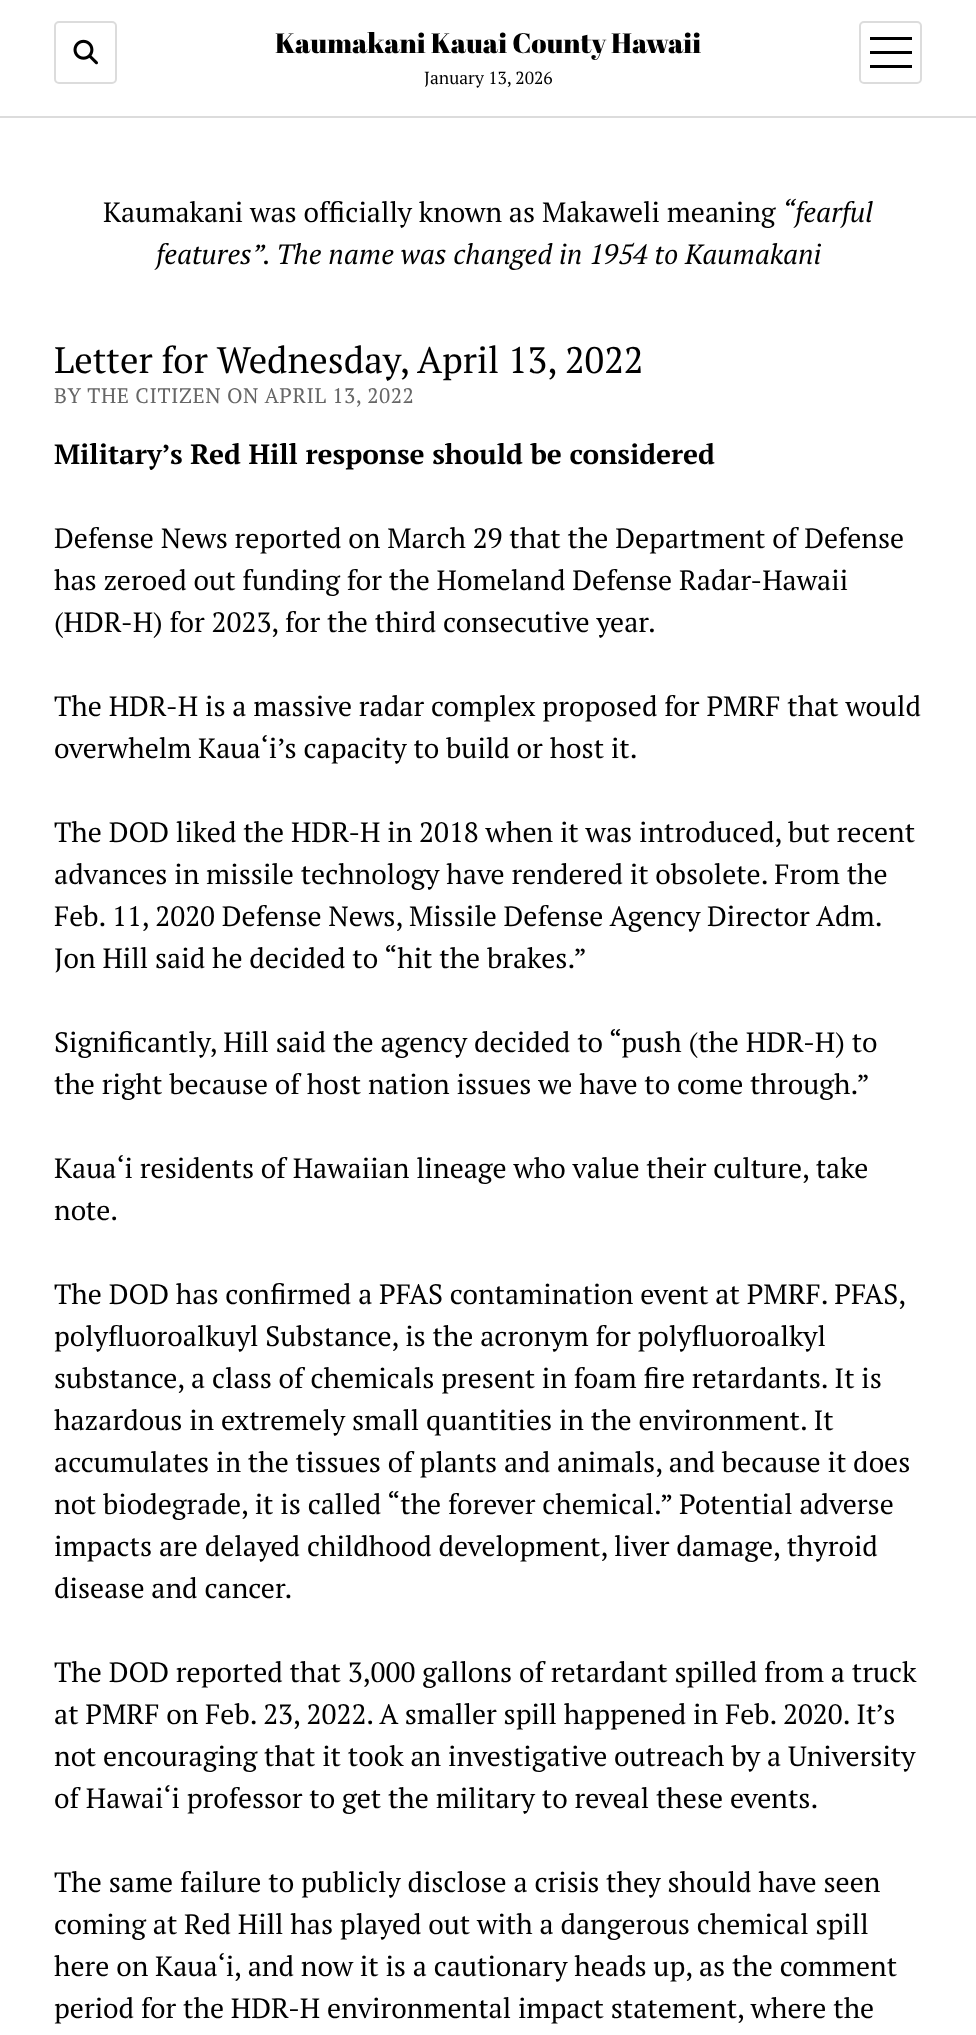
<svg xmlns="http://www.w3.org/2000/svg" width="976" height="2035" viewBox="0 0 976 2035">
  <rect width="100%" height="100%" fill="#ffffff"/>
  <rect x="0" y="116" width="976" height="2" fill="#dcdcdc"/>
  <rect x="55" y="22" width="61" height="61" rx="4" fill="none" stroke="#dcdcdc" stroke-width="2"/>
  <image x="73" y="39" width="25" height="26" href="img1.png"/>
  <text x="275" y="53" font-family="Abril Fatface" font-size="28" fill="#000000">Kaumakani Kauai County Hawaii</text>
  <text x="424" y="84" font-family="PT Serif" font-size="17.5" fill="#000000">January 13, 2026</text>
  <rect x="860" y="22" width="61" height="61" rx="4" fill="none" stroke="#dcdcdc" stroke-width="2"/>
  <rect x="870" y="37" width="42" height="3" fill="#000000"/>
  <rect x="870" y="51" width="42" height="3" fill="#000000"/>
  <rect x="870" y="65" width="42" height="3" fill="#000000"/>
  <text x="103" y="222" font-family="PT Serif" font-size="28" fill="#000000">Kaumakani was officially known as Makaweli meaning</text>
  <text x="782" y="222" font-family="PT Serif" font-size="28" font-style="italic" fill="#000000">“fearful</text>
  <text x="156" y="264" font-family="PT Serif" font-size="28" font-style="italic" fill="#000000">features”. The name was changed in 1954 to Kaumakani</text>
  <text x="54" y="373" font-family="PT Serif" font-size="36.75" fill="#000000">Letter for Wednesday, April 13, 2022</text>
  <text x="54" y="403" font-family="PT Serif" font-size="21" letter-spacing="0.6" fill="#666666">BY THE CITIZEN ON APRIL 13, 2022</text>
  <text x="54" y="464" font-family="PT Serif" font-size="28" font-weight="bold" fill="#000000">Military’s Red Hill response should be considered</text>
  <text x="54" y="548" font-family="PT Serif" font-size="28" fill="#000000">Defense News reported on March 29 that the Department of Defense</text>
  <text x="54" y="590" font-family="PT Serif" font-size="28" fill="#000000">has zeroed out funding for the Homeland Defense Radar-Hawaii</text>
  <text x="54" y="632" font-family="PT Serif" font-size="28" fill="#000000">(HDR-H) for 2023, for the third consecutive year.</text>
  <text x="54" y="716" font-family="PT Serif" font-size="28" fill="#000000">The HDR-H is a massive radar complex proposed for PMRF that would</text>
  <text x="54" y="758" font-family="PT Serif" font-size="28" fill="#000000">overwhelm Kaua‘i’s capacity to build or host it.</text>
  <text x="54" y="842" font-family="PT Serif" font-size="28" fill="#000000">The DOD liked the HDR-H in 2018 when it was introduced, but recent</text>
  <text x="54" y="884" font-family="PT Serif" font-size="28" fill="#000000">advances in missile technology have rendered it obsolete. From the</text>
  <text x="54" y="926" word-spacing="-0.1" font-family="PT Serif" font-size="28" fill="#000000">Feb. 11, 2020 Defense News, Missile Defense Agency Director Adm.</text>
  <text x="54" y="968" font-family="PT Serif" font-size="28" fill="#000000">Jon Hill said he decided to “hit the brakes.”</text>
  <text x="54" y="1052" font-family="PT Serif" font-size="28" fill="#000000">Significantly, Hill said the agency decided to “push (the HDR-H) to</text>
  <text x="54" y="1094" font-family="PT Serif" font-size="28" fill="#000000">the right because of host nation issues we have to come through.”</text>
  <text x="54" y="1178" font-family="PT Serif" font-size="28" fill="#000000">Kaua‘i residents of Hawaiian lineage who value their culture, take</text>
  <text x="54" y="1220" font-family="PT Serif" font-size="28" fill="#000000">note.</text>
  <text x="54" y="1304" font-family="PT Serif" font-size="28" fill="#000000">The DOD has confirmed a PFAS contamination event at PMRF. PFAS,</text>
  <text x="54" y="1346" font-family="PT Serif" font-size="28" fill="#000000">polyfluoroalkuyl Substance, is the acronym for polyfluoroalkyl</text>
  <text x="54" y="1388" font-family="PT Serif" font-size="28" fill="#000000">substance, a class of chemicals present in foam fire retardants. It is</text>
  <text x="54" y="1430" font-family="PT Serif" font-size="28" fill="#000000">hazardous in extremely small quantities in the environment. It</text>
  <text x="54" y="1472" font-family="PT Serif" font-size="28" fill="#000000">accumulates in the tissues of plants and animals, and because it does</text>
  <text x="54" y="1514" font-family="PT Serif" font-size="28" fill="#000000">not biodegrade, it is called “the forever chemical.” Potential adverse</text>
  <text x="54" y="1556" font-family="PT Serif" font-size="28" fill="#000000">impacts are delayed childhood development, liver damage, thyroid</text>
  <text x="54" y="1598" font-family="PT Serif" font-size="28" fill="#000000">disease and cancer.</text>
  <text x="54" y="1682" font-family="PT Serif" font-size="28" fill="#000000">The DOD reported that 3,000 gallons of retardant spilled from a truck</text>
  <text x="54" y="1724" font-family="PT Serif" font-size="28" fill="#000000">at PMRF on Feb. 23, 2022. A smaller spill happened in Feb. 2020. It’s</text>
  <text x="54" y="1766" font-family="PT Serif" font-size="28" fill="#000000">not encouraging that it took an investigative outreach by a University</text>
  <text x="54" y="1808" font-family="PT Serif" font-size="28" fill="#000000">of Hawai‘i professor to get the military to reveal these events.</text>
  <text x="54" y="1892" font-family="PT Serif" font-size="28" fill="#000000">The same failure to publicly disclose a crisis they should have seen</text>
  <text x="54" y="1934" font-family="PT Serif" font-size="28" fill="#000000">coming at Red Hill has played out with a dangerous chemical spill</text>
  <text x="54" y="1976" font-family="PT Serif" font-size="28" fill="#000000">here on Kaua‘i, and now it is a cautionary heads up, as the comment</text>
  <text x="54" y="2018" font-family="PT Serif" font-size="28" fill="#000000">period for the HDR-H environmental impact statement, where the</text>
</svg>
